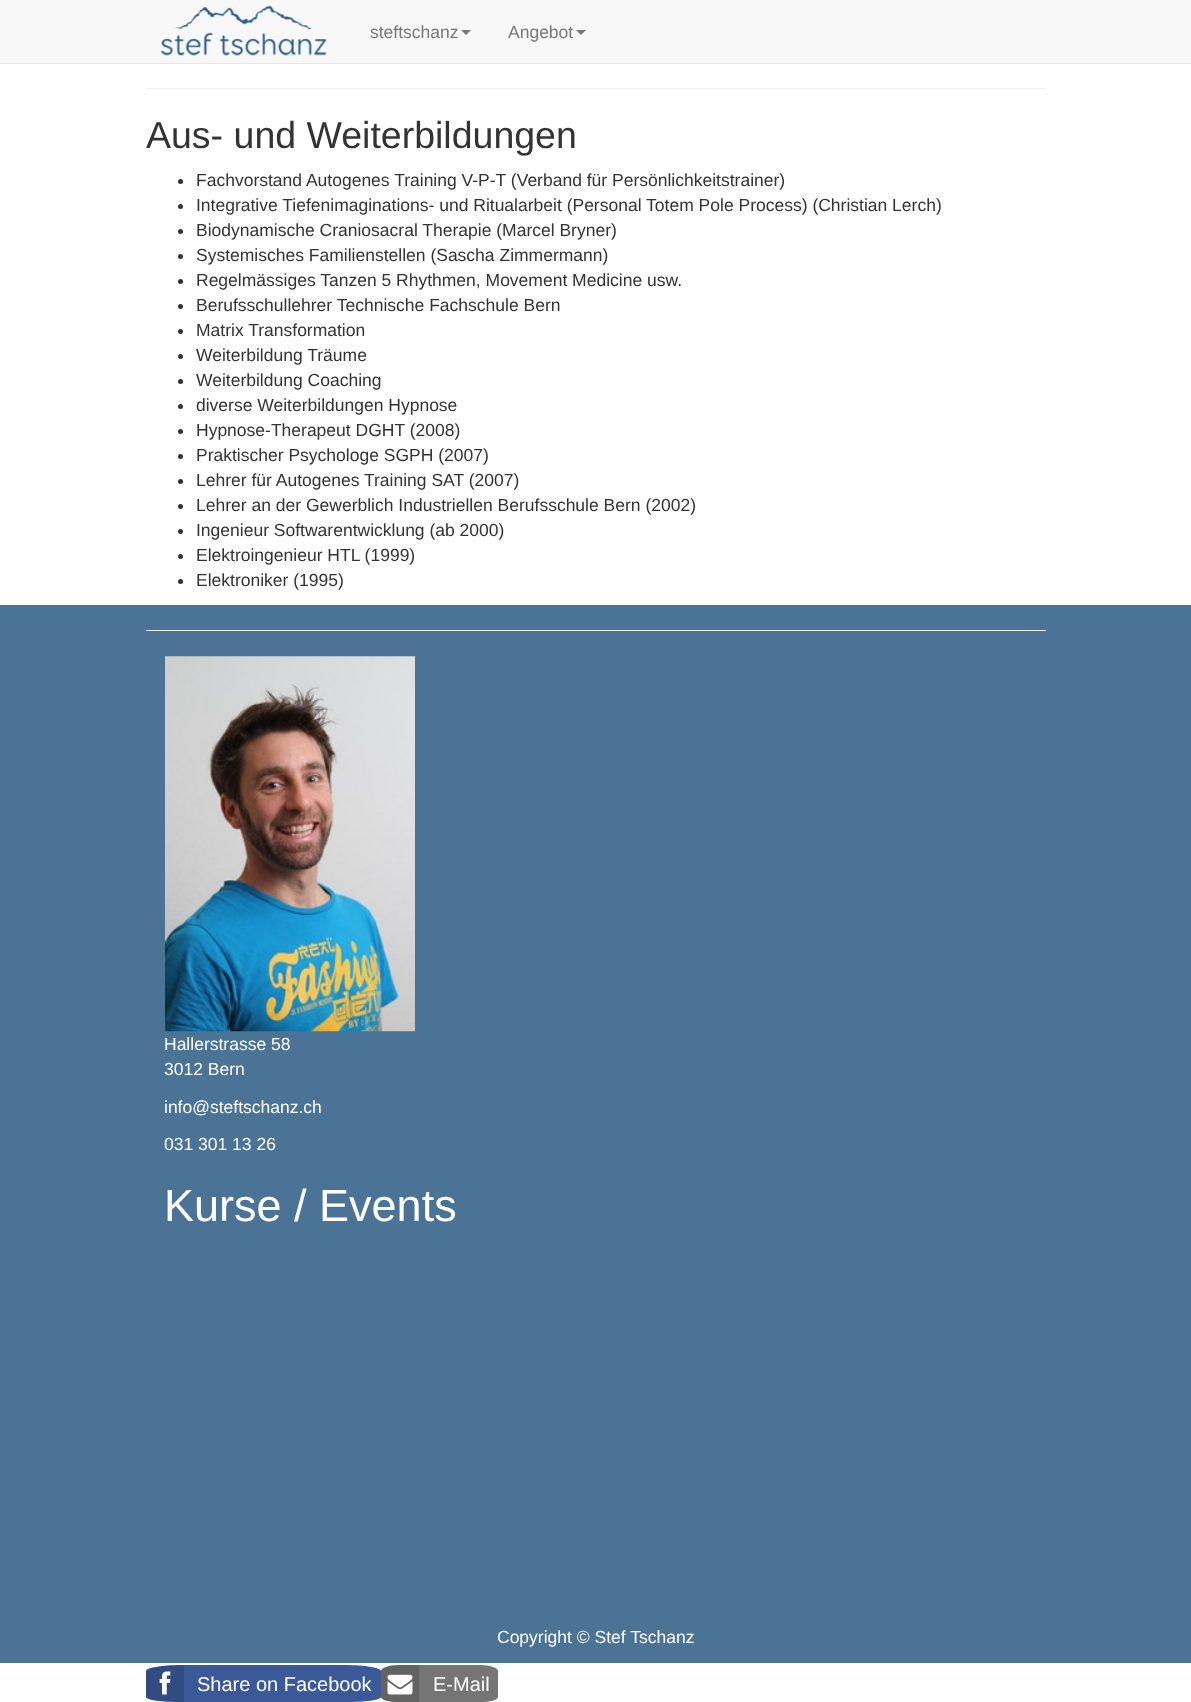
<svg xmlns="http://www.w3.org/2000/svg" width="1191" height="1702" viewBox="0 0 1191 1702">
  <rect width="100%" height="100%" fill="#ffffff"/>
  <rect x="0" y="0" width="1191" height="63" fill="#f8f8f8"/>
  <rect x="0" y="63" width="1191" height="1" fill="#e7e7e7"/>
  <image x="160" y="5" width="167" height="51" href="img1.png"/>
  <text x="370" y="38" font-family="Liberation Sans" font-size="17.5" fill="#777777">steftschanz</text>
  <path d="M461 30H471L466 35Z" fill="#777777"/>
  <text x="508" y="38" font-family="Liberation Sans" font-size="17.5" fill="#777777">Angebot</text>
  <path d="M576 30H586L581 35Z" fill="#777777"/>
  <rect x="146" y="88" width="900" height="1" fill="#eeeeee"/>
  <text x="146" y="148" font-family="Liberation Sans" font-size="37.5" fill="#333333">Aus- und Weiterbildungen</text>
  <circle cx="180.5" cy="181.5" r="2.5" fill="#333333"/>
  <text x="196" y="186" font-family="Liberation Sans" font-size="17.5" fill="#333333">Fachvorstand Autogenes Training V-P-T (Verband für Persönlichkeitstrainer)</text>
  <circle cx="180.5" cy="206.5" r="2.5" fill="#333333"/>
  <text x="196" y="211" font-family="Liberation Sans" font-size="17.5" fill="#333333">Integrative Tiefenimaginations- und Ritualarbeit (Personal Totem Pole Process) (Christian Lerch)</text>
  <circle cx="180.5" cy="231.5" r="2.5" fill="#333333"/>
  <text x="196" y="236" font-family="Liberation Sans" font-size="17.5" fill="#333333">Biodynamische Craniosacral Therapie (Marcel Bryner)</text>
  <circle cx="180.5" cy="256.5" r="2.5" fill="#333333"/>
  <text x="196" y="261" font-family="Liberation Sans" font-size="17.5" fill="#333333">Systemisches Familienstellen (Sascha Zimmermann)</text>
  <circle cx="180.5" cy="281.5" r="2.5" fill="#333333"/>
  <text x="196" y="286" font-family="Liberation Sans" font-size="17.5" fill="#333333">Regelmässiges Tanzen 5 Rhythmen, Movement Medicine usw.</text>
  <circle cx="180.5" cy="306.5" r="2.5" fill="#333333"/>
  <text x="196" y="311" font-family="Liberation Sans" font-size="17.5" fill="#333333">Berufsschullehrer Technische Fachschule Bern</text>
  <circle cx="180.5" cy="331.5" r="2.5" fill="#333333"/>
  <text x="196" y="336" font-family="Liberation Sans" font-size="17.5" fill="#333333">Matrix Transformation</text>
  <circle cx="180.5" cy="356.5" r="2.5" fill="#333333"/>
  <text x="196" y="361" font-family="Liberation Sans" font-size="17.5" fill="#333333">Weiterbildung Träume</text>
  <circle cx="180.5" cy="381.5" r="2.5" fill="#333333"/>
  <text x="196" y="386" font-family="Liberation Sans" font-size="17.5" fill="#333333">Weiterbildung Coaching</text>
  <circle cx="180.5" cy="406.5" r="2.5" fill="#333333"/>
  <text x="196" y="411" font-family="Liberation Sans" font-size="17.5" fill="#333333">diverse Weiterbildungen Hypnose</text>
  <circle cx="180.5" cy="431.5" r="2.5" fill="#333333"/>
  <text x="196" y="436" font-family="Liberation Sans" font-size="17.5" fill="#333333">Hypnose-Therapeut DGHT (2008)</text>
  <circle cx="180.5" cy="456.5" r="2.5" fill="#333333"/>
  <text x="196" y="461" font-family="Liberation Sans" font-size="17.5" fill="#333333">Praktischer Psychologe SGPH (2007)</text>
  <circle cx="180.5" cy="481.5" r="2.5" fill="#333333"/>
  <text x="196" y="486" font-family="Liberation Sans" font-size="17.5" fill="#333333">Lehrer für Autogenes Training SAT (2007)</text>
  <circle cx="180.5" cy="506.5" r="2.5" fill="#333333"/>
  <text x="196" y="511" font-family="Liberation Sans" font-size="17.5" fill="#333333">Lehrer an der Gewerblich Industriellen Berufsschule Bern (2002)</text>
  <circle cx="180.5" cy="531.5" r="2.5" fill="#333333"/>
  <text x="196" y="536" font-family="Liberation Sans" font-size="17.5" fill="#333333">Ingenieur Softwarentwicklung (ab 2000)</text>
  <circle cx="180.5" cy="556.5" r="2.5" fill="#333333"/>
  <text x="196" y="561" font-family="Liberation Sans" font-size="17.5" fill="#333333">Elektroingenieur HTL (1999)</text>
  <circle cx="180.5" cy="581.5" r="2.5" fill="#333333"/>
  <text x="196" y="586" font-family="Liberation Sans" font-size="17.5" fill="#333333">Elektroniker (1995)</text>
  <rect x="0" y="605" width="1191" height="1058" fill="#4a7395"/>
  <rect x="146" y="630" width="900" height="1" fill="#eeeeee"/>
  <image x="165" y="656" width="250" height="376" href="img2.png"/>
  <text x="164" y="1050" font-family="Liberation Sans" font-size="17.5" fill="#ffffff">Hallerstrasse 58</text>
  <text x="164" y="1075" font-family="Liberation Sans" font-size="17.5" fill="#ffffff">3012 Bern</text>
  <text x="164" y="1113" font-family="Liberation Sans" font-size="17.5" fill="#ffffff">info@steftschanz.ch</text>
  <text x="164" y="1150" font-family="Liberation Sans" font-size="17.5" fill="#ffffff">031 301 13 26</text>
  <text x="164" y="1221" font-family="Liberation Sans" font-size="45" fill="#ffffff">Kurse / Events</text>
  <text x="497" y="1643" font-family="Liberation Sans" font-size="17.5" fill="#ffffff">Copyright © Stef Tschanz</text>
  <path d="M182 1665H346C365 1665 381 1668 381 1671V1697C381 1700 365 1702 346 1702H182C162 1702 146 1700 146 1697V1671C146 1668 162 1665 182 1665Z" fill="#3b5998"/>
  <path d="M181.5 1665C162 1665 146 1667.5 146 1670.5V1697C146 1700 162 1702.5 181.5 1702.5H184V1665Z" fill="#000000" fill-opacity="0.15"/>
  <image x="159" y="1671" width="12" height="24" href="img3.png"/>
  <text x="197" y="1691" font-family="Liberation Sans" font-size="20" fill="#ffffff">Share on Facebook</text>
  <path d="M399 1665H480C490 1665 498 1668 498 1671V1697C498 1700 490 1702 480 1702H399C389 1702 381 1700 381 1697V1671C381 1668 389 1665 399 1665Z" fill="#757575"/>
  <path d="M398.5 1665C389 1665 381 1667.5 381 1670.5V1697C381 1700 389 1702.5 398.5 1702.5H419V1665Z" fill="#000000" fill-opacity="0.15"/>
  <image x="387" y="1674" width="26" height="21" href="img4.png"/>
  <text x="433" y="1691" font-family="Liberation Sans" font-size="20" fill="#ffffff">E-Mail</text>
</svg>
